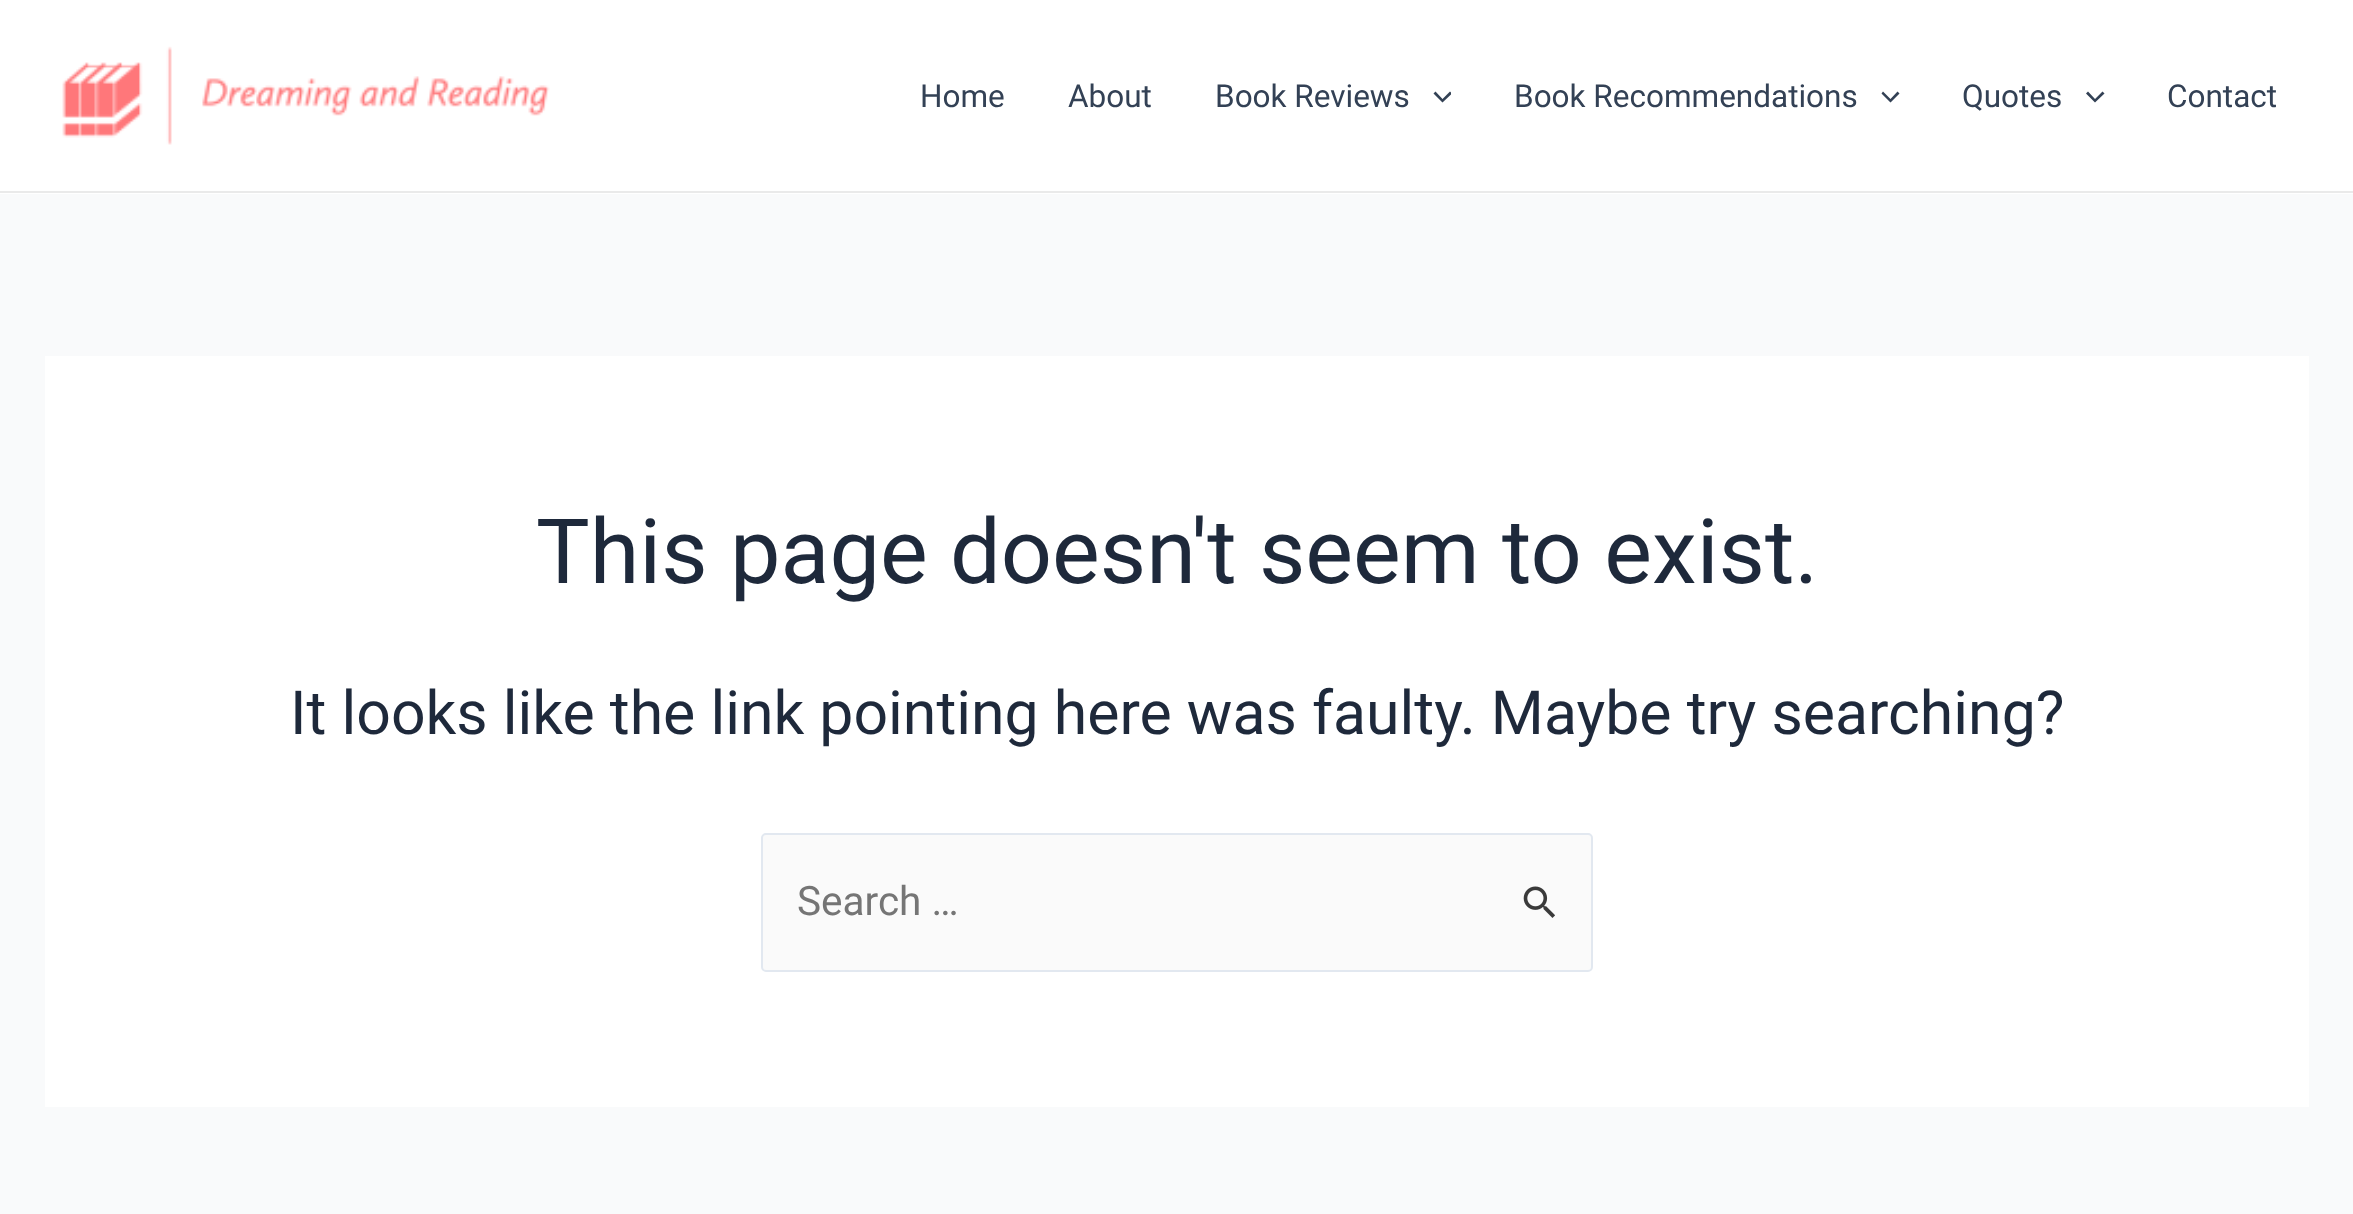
<svg xmlns="http://www.w3.org/2000/svg" width="2353" height="1214" viewBox="0 0 2353 1214">
  <defs>
    <clipPath id="clip1"><rect x="1433" y="88" width="18" height="20"/></clipPath>
  </defs>
  <rect width="100%" height="100%" fill="#f9fafb"/>
  <rect x="0" y="0" width="2353" height="194" fill="#ffffff"/>
  <rect x="0" y="191" width="2353" height="2" fill="#eaeaea"/>
  <image x="62" y="46" width="488" height="99" href="img1.png"/>
  <text x="920" y="107" font-family="Roboto" font-size="31.5" fill="#334155">Home</text>
  <text x="1068" y="107" font-family="Roboto" font-size="31.5" fill="#334155">About</text>
  <text x="1215" y="107" font-family="Roboto" font-size="31.5" fill="#334155">Book Reviews</text>
  <g clip-path="url(#clip1)">
    <path d="M1433.5 93.5L1442.5 102.5L1452 93.5L1450 91.5L1442.5 99L1435.5 91.5Z" fill="#334155"/>
  </g>
  <text x="1514" y="107" font-family="Roboto" font-size="31.5" fill="#334155">Book Recommendations</text>
  <path d="M1881.5 93.5L1890.5 102.5L1899.5 93.5L1897.5 91.5L1890.5 99L1883 91.5Z" fill="#334155"/>
  <text x="1962" y="107" font-family="Roboto" font-size="31.5" fill="#334155">Quotes</text>
  <path d="M2086 93.5L2095 102.5L2104.5 93.5L2102.5 91.5L2095 99L2088 91.5Z" fill="#334155"/>
  <text x="2167" y="107" font-family="Roboto" font-size="31.5" fill="#334155">Contact</text>
  <rect x="45" y="356" width="2264" height="751" fill="#ffffff"/>
  <text x="536" y="583" font-family="Roboto" font-size="90" fill="#1e293b">This page doesn't seem to exist.</text>
  <text x="290" y="734" font-family="Roboto" font-size="60.75" fill="#1e293b">It looks like the link pointing here was faulty. Maybe try searching?</text>
  <rect x="762" y="834" width="830" height="137" rx="4" fill="#fafafa" stroke="#e2e8f0" stroke-width="2"/>
  <text x="797" y="915" font-family="Roboto" font-size="40.5" fill="#757575">Search …</text>
  <image x="1523" y="886" width="32" height="32" href="img2.png"/>
</svg>
